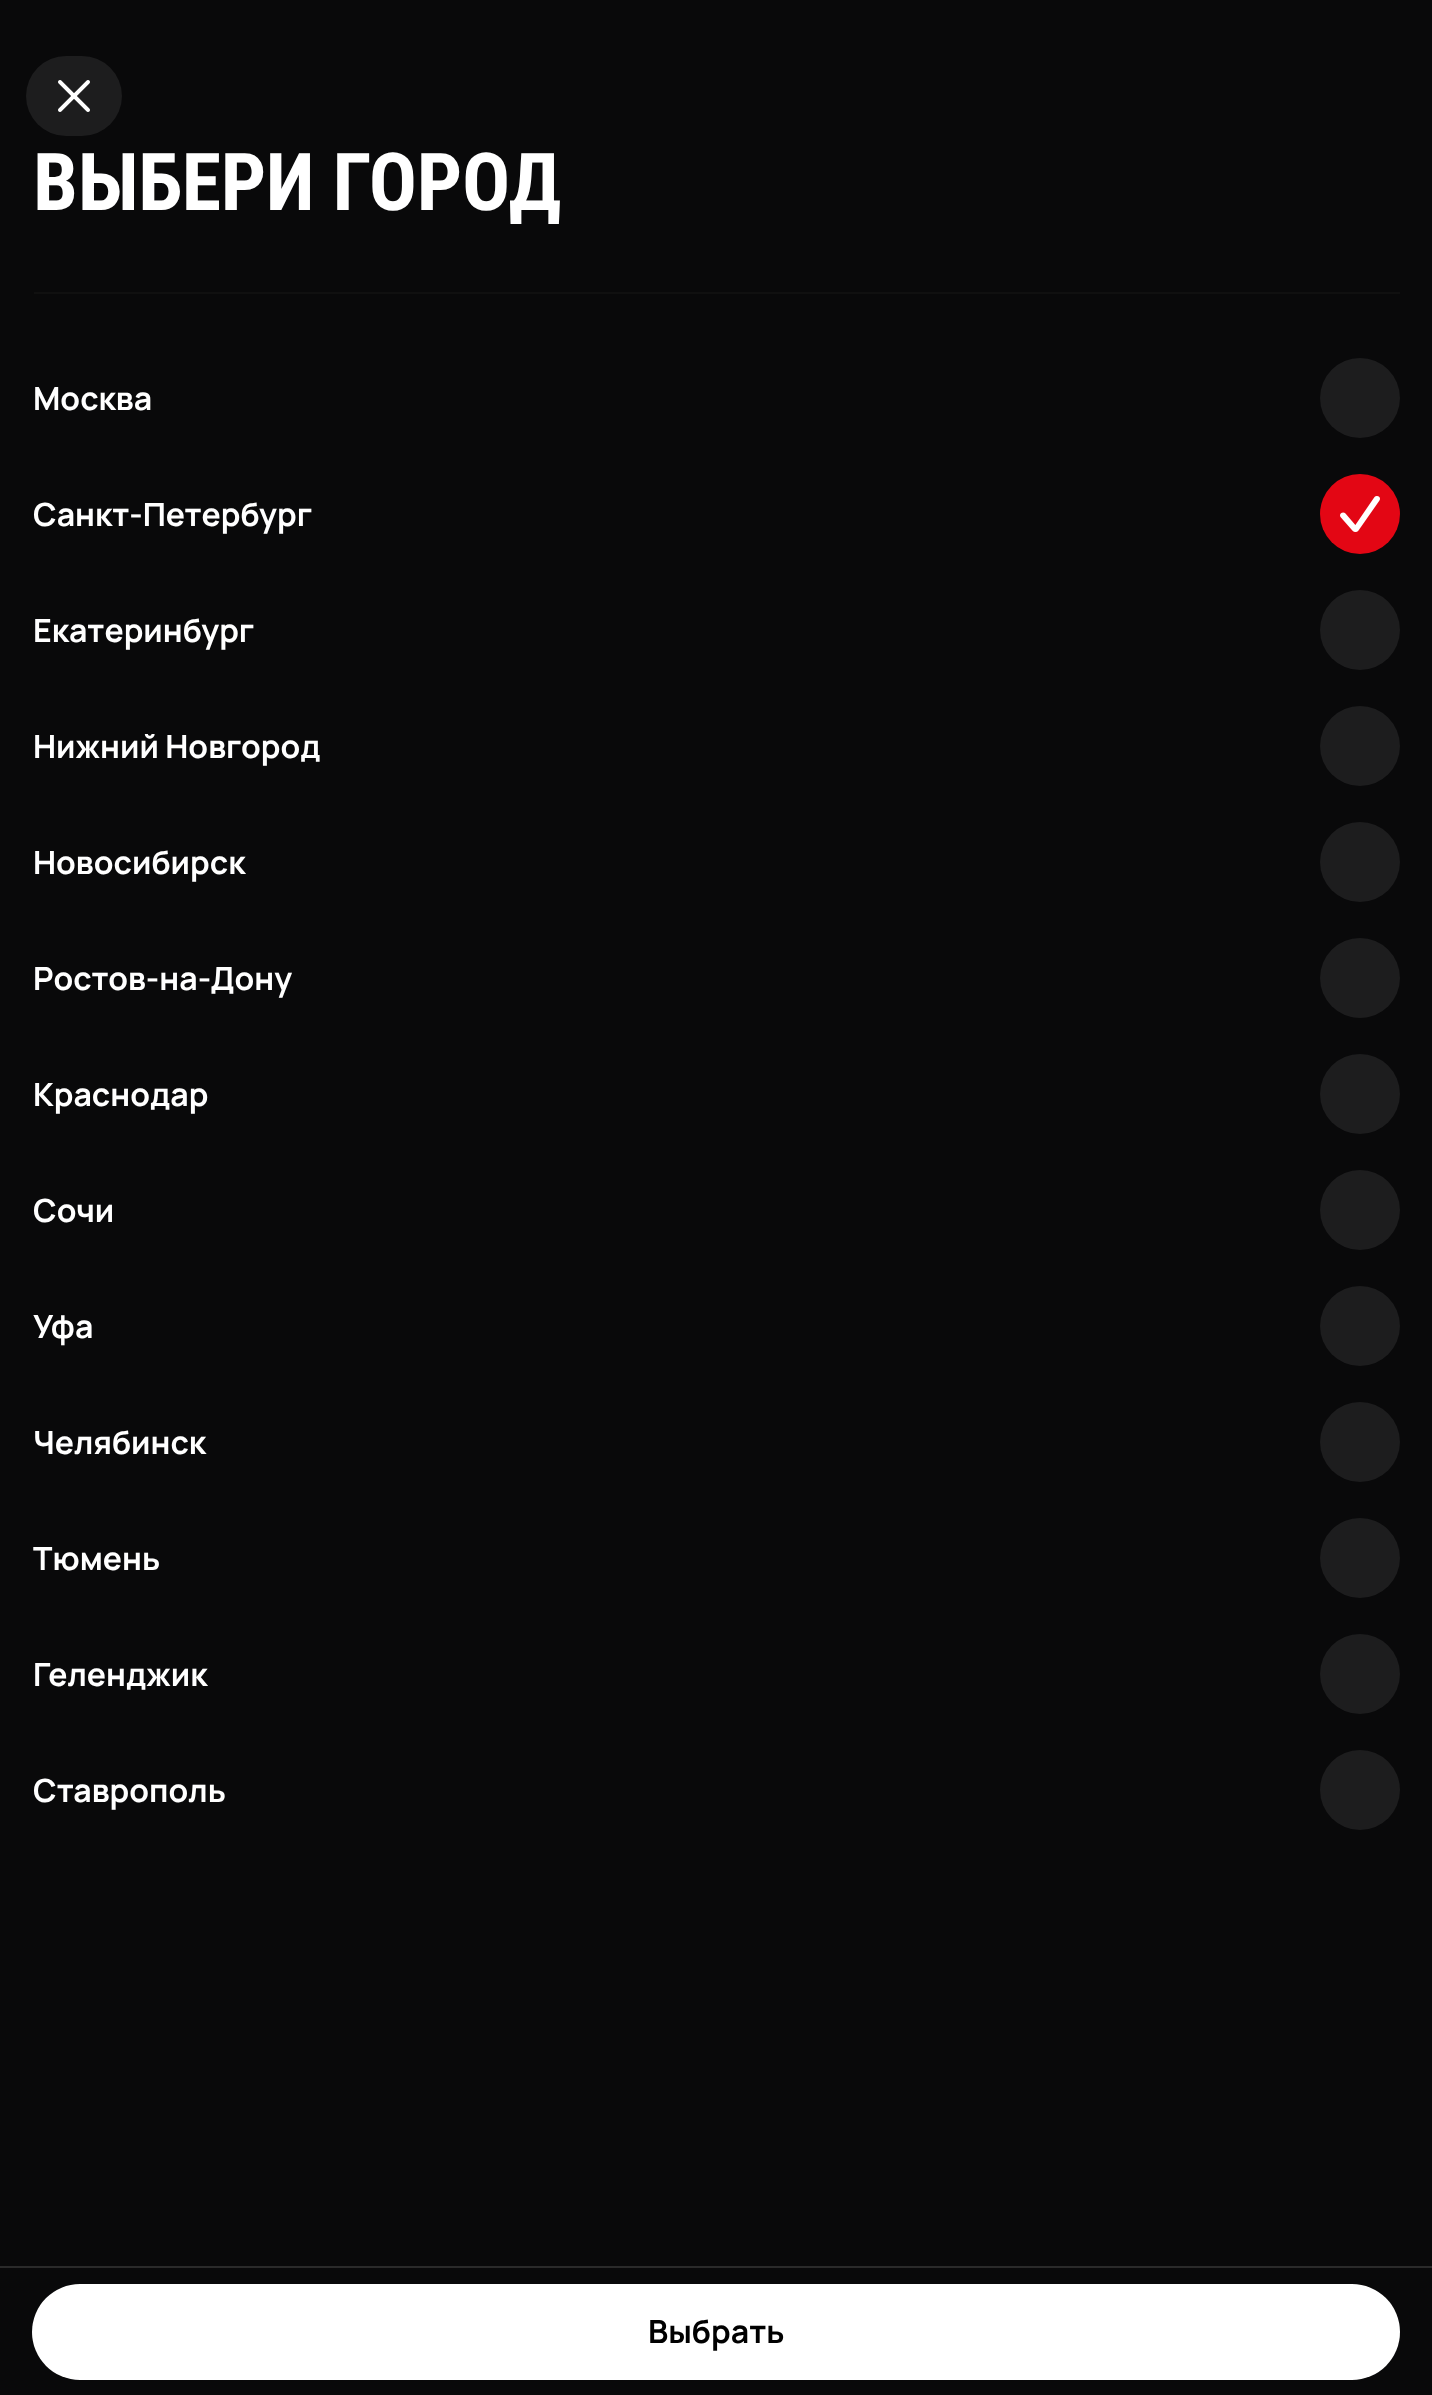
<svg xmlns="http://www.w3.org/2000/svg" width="1432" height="2395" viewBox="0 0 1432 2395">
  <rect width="100%" height="100%" fill="#09090a"/>
  <rect x="26" y="56" width="96" height="80" rx="40" fill="#1d1d1e"/>
  <image x="58" y="80" width="32" height="32" href="img1.png"/>
  <text x="33" y="210" font-family="Roboto Condensed" font-size="80" font-weight="bold" letter-spacing="-0.25" fill="#ffffff">ВЫБЕРИ ГОРОД</text>
  <rect x="34" y="292" width="1366" height="2" fill="#101010"/>
  <text x="33" y="410" font-family="Manrope" font-size="32" font-weight="bold" fill="#ffffff">Москва</text>
  <circle cx="1360" cy="398" r="40" fill="#1d1d1e"/>
  <text x="33" y="526" font-family="Manrope" font-size="32" font-weight="bold" fill="#ffffff">Санкт-Петербург</text>
  <circle cx="1360" cy="514" r="40" fill="#e30614"/>
  <image x="1340" y="496" width="40" height="36" href="img2.png"/>
  <text x="33" y="642" font-family="Manrope" font-size="32" font-weight="bold" fill="#ffffff">Екатеринбург</text>
  <circle cx="1360" cy="630" r="40" fill="#1d1d1e"/>
  <text x="33" y="758" font-family="Manrope" font-size="32" font-weight="bold" fill="#ffffff">Нижний Новгород</text>
  <circle cx="1360" cy="746" r="40" fill="#1d1d1e"/>
  <text x="33" y="874" font-family="Manrope" font-size="32" font-weight="bold" fill="#ffffff">Новосибирск</text>
  <circle cx="1360" cy="862" r="40" fill="#1d1d1e"/>
  <text x="33" y="990" font-family="Manrope" font-size="32" font-weight="bold" fill="#ffffff">Ростов-на-Дону</text>
  <circle cx="1360" cy="978" r="40" fill="#1d1d1e"/>
  <text x="33" y="1106" font-family="Manrope" font-size="32" font-weight="bold" fill="#ffffff">Краснодар</text>
  <circle cx="1360" cy="1094" r="40" fill="#1d1d1e"/>
  <text x="33" y="1222" font-family="Manrope" font-size="32" font-weight="bold" fill="#ffffff">Сочи</text>
  <circle cx="1360" cy="1210" r="40" fill="#1d1d1e"/>
  <text x="33" y="1338" font-family="Manrope" font-size="32" font-weight="bold" fill="#ffffff">Уфа</text>
  <circle cx="1360" cy="1326" r="40" fill="#1d1d1e"/>
  <text x="33" y="1454" font-family="Manrope" font-size="32" font-weight="bold" fill="#ffffff">Челябинск</text>
  <circle cx="1360" cy="1442" r="40" fill="#1d1d1e"/>
  <text x="33" y="1570" font-family="Manrope" font-size="32" font-weight="bold" fill="#ffffff">Тюмень</text>
  <circle cx="1360" cy="1558" r="40" fill="#1d1d1e"/>
  <text x="33" y="1686" font-family="Manrope" font-size="32" font-weight="bold" fill="#ffffff">Геленджик</text>
  <circle cx="1360" cy="1674" r="40" fill="#1d1d1e"/>
  <text x="33" y="1802" font-family="Manrope" font-size="32" font-weight="bold" fill="#ffffff">Ставрополь</text>
  <circle cx="1360" cy="1790" r="40" fill="#1d1d1e"/>
  <rect x="0" y="2266" width="1432" height="2" fill="#2a2a2a"/>
  <rect x="32" y="2284" width="1368" height="96" rx="48" fill="#ffffff"/>
  <text x="648" y="2343" font-family="Manrope" font-size="32" font-weight="bold" fill="#000000">Выбрать</text>
</svg>
